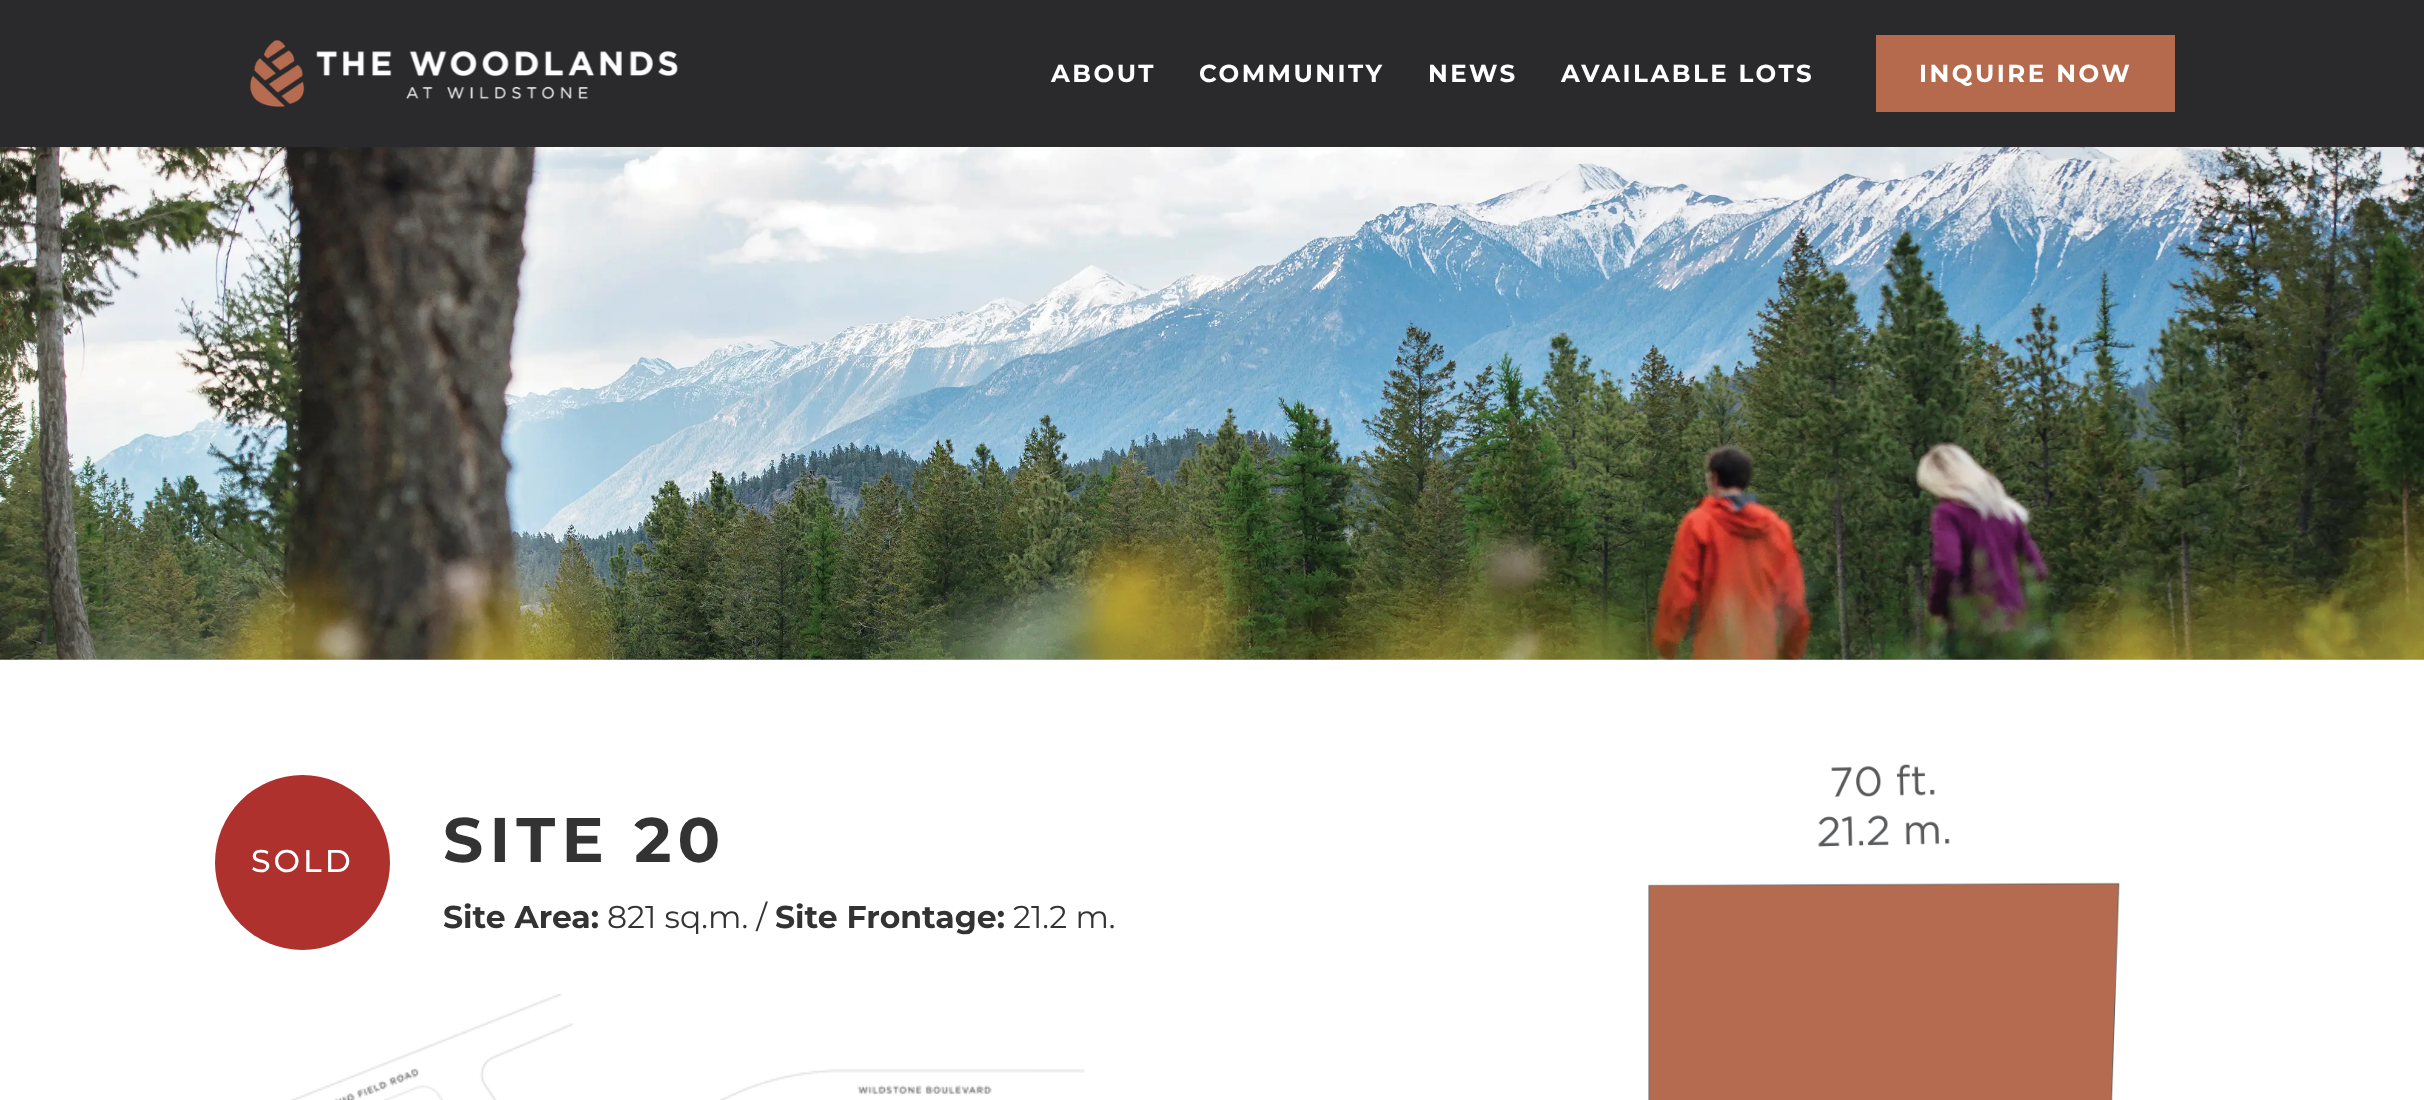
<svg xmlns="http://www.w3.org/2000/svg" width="2424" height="1100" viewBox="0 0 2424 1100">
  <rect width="100%" height="100%" fill="#ffffff"/>
  <rect x="0" y="0" width="2424" height="147" fill="#2a2a2c"/>
  <image x="250" y="40" width="428" height="67" href="img1.png"/>
  <text x="1051" y="82" font-family="Montserrat" font-size="24.5" font-weight="bold" letter-spacing="2.5" fill="#ffffff">ABOUT</text>
  <text x="1199" y="82" font-family="Montserrat" font-size="24.5" font-weight="bold" letter-spacing="2.5" fill="#ffffff">COMMUNITY</text>
  <text x="1428" y="82" font-family="Montserrat" font-size="24.5" font-weight="bold" letter-spacing="2.5" fill="#ffffff">NEWS</text>
  <text x="1561" y="82" font-family="Montserrat" font-size="24.5" font-weight="bold" letter-spacing="2.5" fill="#ffffff">AVAILABLE LOTS</text>
  <rect x="1876" y="35" width="299" height="77" fill="#b56a4e"/>
  <text x="1919" y="82" font-family="Montserrat" font-size="24.5" font-weight="bold" letter-spacing="2.5" fill="#ffffff">INQUIRE NOW</text>
  <image x="0" y="147" width="2424" height="513" href="img2.png"/>
  <circle cx="302.5" cy="862.5" r="87.5" fill="#af312d"/>
  <text x="251" y="872" font-family="Montserrat" font-size="31.5" font-weight="500" letter-spacing="3" fill="#ffffff">SOLD</text>
  <text x="443" y="862" font-family="Montserrat" font-size="63" font-weight="bold" letter-spacing="6.25" fill="#333333">SITE 20</text>
  <text x="443" y="928" font-family="Montserrat" font-size="31.5" font-weight="bold" fill="#333333">Site Area:</text>
  <text x="607" y="928" font-family="Montserrat" font-size="31.5" fill="#333333">821 sq.m. /</text>
  <text x="775" y="928" font-family="Montserrat" font-size="31.5" font-weight="bold" fill="#333333">Site Frontage:</text>
  <text x="1013" y="928" font-family="Montserrat" font-size="31.5" fill="#333333">21.2 m.</text>
  <image x="291" y="994" width="794" height="106" href="img3.png"/>
  <image x="1648" y="764" width="472" height="336" href="img4.png"/>
</svg>
